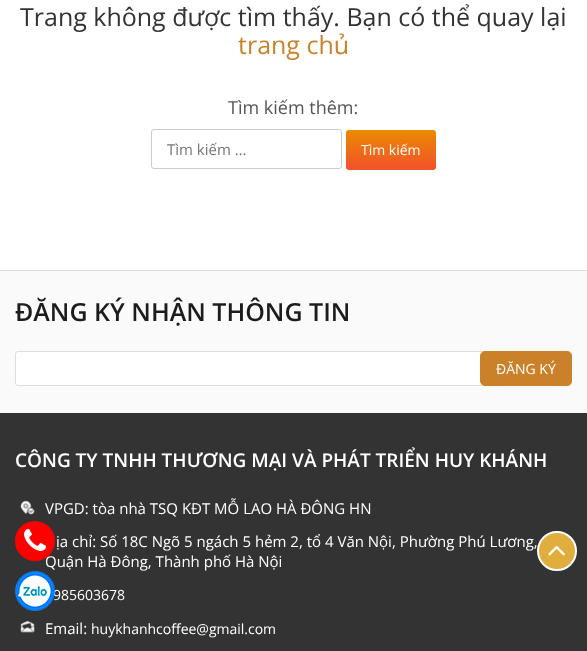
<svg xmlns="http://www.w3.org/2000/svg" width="587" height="651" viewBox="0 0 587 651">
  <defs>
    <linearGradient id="g1" gradientUnits="userSpaceOnUse" x1="391" y1="130" x2="391" y2="170"><stop offset="0" stop-color="#eb8a00"/><stop offset="1" stop-color="#f2512d"/></linearGradient>
  </defs>
  <rect width="100%" height="100%" fill="#ffffff"/>
  <text x="20" y="26" font-family="Open Sans" font-size="25" fill="#333333">Trang không được tìm thấy. Bạn có thể quay lại</text>
  <text x="238" y="54" font-family="Open Sans" font-size="25" fill="#cb812a">trang chủ</text>
  <text x="228" y="114" font-family="Open Sans" font-size="18" fill="#555555">Tìm kiếm thêm:</text>
  <rect x="151.5" y="129.5" width="190" height="39" rx="2.5" fill="none" stroke="#cccccc"/>
  <text x="167" y="155" font-family="Open Sans" font-size="15" fill="#757575">Tìm kiếm …</text>
  <rect x="346" y="130" width="90" height="40" rx="3" fill="url(#g1)"/>
  <text x="361" y="155" font-family="Open Sans" font-size="14" fill="#ffffff">Tìm kiếm</text>
  <rect x="0" y="271" width="587" height="142" fill="#fafafa"/>
  <rect x="0" y="270" width="587" height="1" fill="#dddddd"/>
  <text x="15" y="321" font-family="Open Sans" font-size="25" font-weight="600" fill="#1c1c1c">ĐĂNG KÝ NHẬN THÔNG TIN</text>
  <rect x="15.5" y="351.5" width="556" height="34" rx="2.5" fill="#ffffff" stroke="#dddddd"/>
  <rect x="480.5" y="351.5" width="91" height="34" rx="4.5" fill="#cb812a" stroke="#cb812a"/>
  <text x="496" y="374" font-family="Open Sans" font-size="14" fill="#ffffff">ĐĂNG KÝ</text>
  <rect x="0" y="413" width="587" height="238" fill="#333333"/>
  <text x="15" y="467" font-family="Open Sans" font-size="19" font-weight="600" fill="#ffffff">CÔNG TY TNHH THƯƠNG MẠI VÀ PHÁT TRIỂN HUY KHÁNH</text>
  <image x="20" y="500" width="15" height="15" href="img1.png"/>
  <text x="45" y="514" font-family="Open Sans" font-size="15" fill="#ffffff">VPGD: tòa nhà TSQ KĐT MỖ LAO HÀ ĐÔNG HN</text>
  <text x="56" y="547" font-family="Open Sans" font-size="15" fill="#ffffff">ịa chỉ: Số 18C Ngõ 5 ngách 5 hẻm 2, tổ 4 Văn Nội, Phường Phú Lương,</text>
  <text x="45" y="567" font-family="Open Sans" font-size="15" fill="#ffffff">Quận Hà Đông, Thành phố Hà Nội</text>
  <text x="53" y="600" font-family="Open Sans" font-size="14" fill="#ffffff">985603678</text>
  <image x="20" y="620" width="15" height="13" href="img2.png"/>
  <text x="45" y="634" font-family="Open Sans" font-size="15" fill="#ffffff">Email:</text>
  <text x="91" y="634" font-family="Open Sans" font-size="14" fill="#ffffff">huykhanhcoffee@gmail.com</text>
  <circle cx="35" cy="541" r="20" fill="#ff0000"/>
  <image x="24" y="529" width="22" height="22" href="img3.png"/>
  <image x="15" y="571" width="40" height="40" href="img4.png"/>
  <circle cx="557" cy="551" r="19" fill="#e1ae3e" stroke="#ffffff" stroke-width="2"/>
  <image x="548" y="545" width="17" height="11" href="img5.png"/>
</svg>
